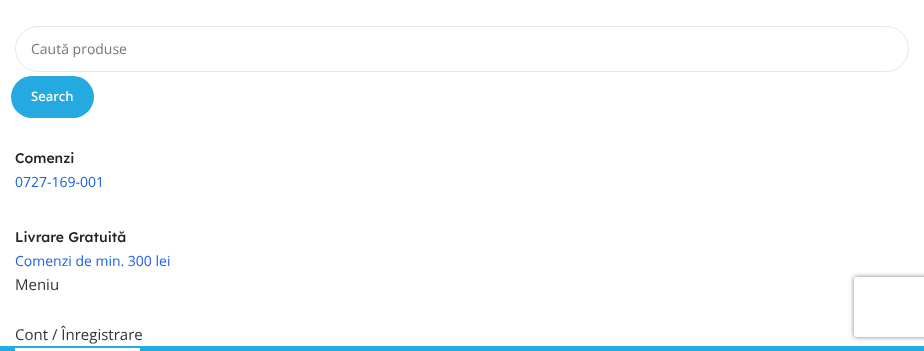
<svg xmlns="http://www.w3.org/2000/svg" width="924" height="351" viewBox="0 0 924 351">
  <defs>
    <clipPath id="clip1"><path d="M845 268H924V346H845ZM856 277H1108C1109 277 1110 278 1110 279V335C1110 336 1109 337 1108 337H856C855 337 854 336 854 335V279C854 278 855 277 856 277Z" clip-rule="evenodd"/></clipPath>
    <filter id="blur1" x="-50%" y="-200%" width="200%" height="500%"><feGaussianBlur stdDeviation="2.5"/></filter>
  </defs>
  <rect width="100%" height="100%" fill="#ffffff"/>
  <rect x="15.5" y="26.5" width="893" height="45" rx="22.5" fill="none" stroke="#e6e6e6"/>
  <text x="31" y="54" font-family="Open Sans" font-size="14" fill="#777777">Caută produse</text>
  <rect x="11" y="76" width="83" height="42" rx="21" fill="#24a9e0"/>
  <text x="31" y="101" font-family="Open Sans" font-size="13" font-weight="600" fill="#ffffff">Search</text>
  <text x="15" y="163" font-family="Lexend Deca" font-size="14" font-weight="500" fill="#242424">Comenzi</text>
  <text x="15" y="187" font-family="Open Sans" font-size="14" fill="#1c61e7">0727-169-001</text>
  <text x="15" y="242" font-family="Lexend Deca" font-size="14" font-weight="500" fill="#242424">Livrare Gratuită</text>
  <text x="15" y="266" font-family="Open Sans" font-size="14" fill="#1c61e7">Comenzi de min. 300 lei</text>
  <text x="15" y="290" font-family="Open Sans" font-size="15" fill="#333333">Meniu</text>
  <text x="15" y="340" font-family="Open Sans" font-size="15" fill="#333333">Cont / Înregistrare</text>
  <rect x="0" y="346" width="924" height="5" fill="#24a9e0"/>
  <rect x="15" y="348" width="125" height="3" fill="#ffffff"/>
  <g clip-path="url(#clip1)">
    <rect x="854" y="277" width="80" height="60" rx="2" fill="#808080" filter="url(#blur1)"/>
  </g>
</svg>
